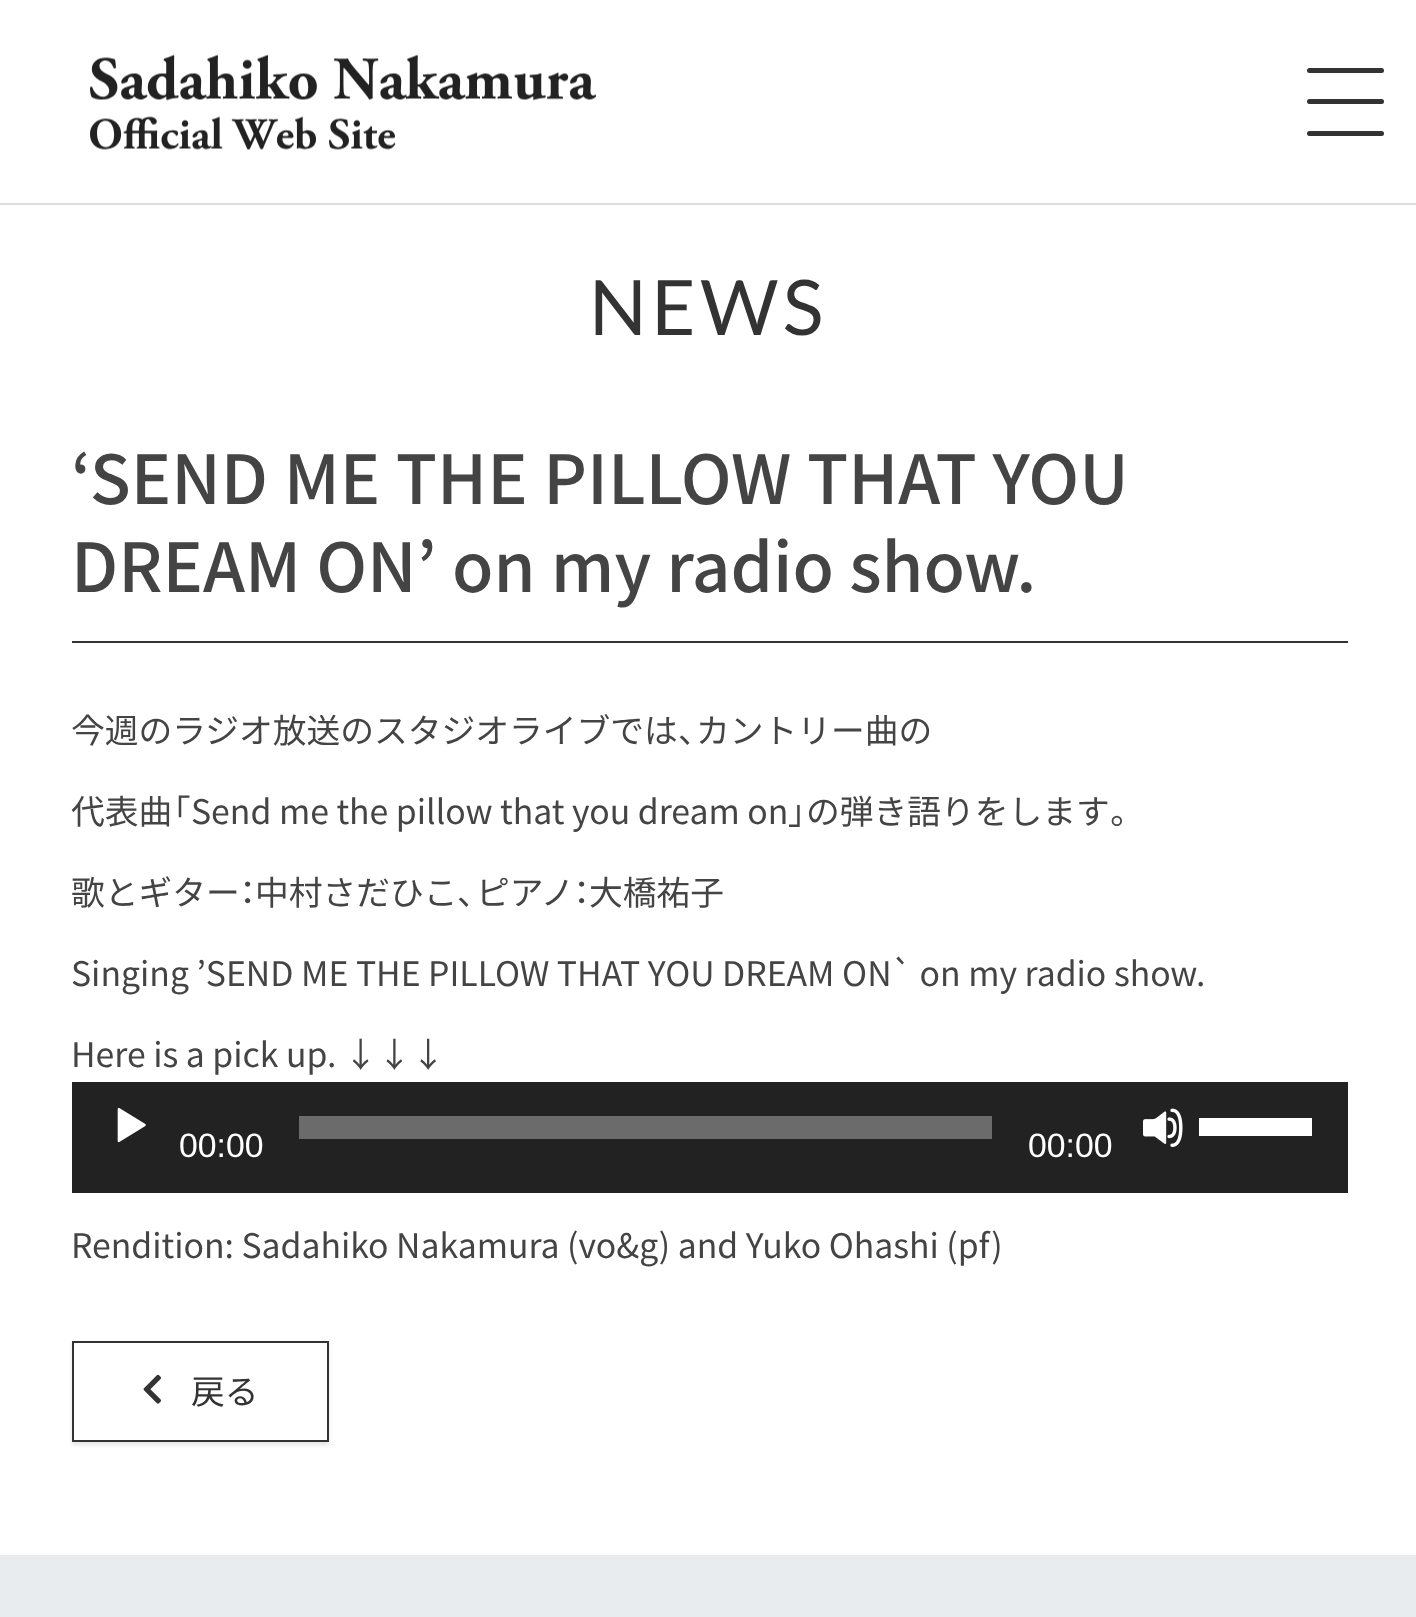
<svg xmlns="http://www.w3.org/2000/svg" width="1416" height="1617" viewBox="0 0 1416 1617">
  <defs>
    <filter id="blur1" x="-50%" y="-200%" width="200%" height="500%"><feGaussianBlur stdDeviation="2"/></filter>
  </defs>
  <rect width="100%" height="100%" fill="#ffffff"/>
  <rect x="0" y="203" width="1416" height="2" fill="#dddddd"/>
  <image x="90" y="54" width="506" height="96" href="img1.png"/>
  <rect x="1307" y="68" width="77" height="5" rx="2.5" fill="#333333"/>
  <rect x="1307" y="99" width="77" height="5" rx="2.5" fill="#333333"/>
  <rect x="1307" y="131" width="77" height="5" rx="2.5" fill="#333333"/>
  <text x="589" y="335" font-family="Lato" font-size="76.5" letter-spacing="4.5" fill="#333333">NEWS</text>
  <rect x="72" y="641" width="1276" height="2" fill="#333333"/>
  <text x="71" y="504" word-spacing="0.5" font-family="Noto Sans JP" font-size="67.5" font-weight="500" fill="#444444">‘SEND ME THE PILLOW THAT YOU</text>
  <text x="71" y="592" font-family="Noto Sans JP" font-size="67.5" font-weight="500" fill="#444444">DREAM ON’ on my radio show.</text>
  <text x="71" y="743" font-family="Noto Sans JP" font-size="33.75" fill="#444444">今週のラジオ放送のスタジオライブでは</text>
  <text x="678" y="743" font-family="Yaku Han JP" font-size="33.75" fill="#444444">、</text>
  <text x="696" y="743" font-family="Noto Sans JP" font-size="33.75" fill="#444444">カントリー曲の</text>
  <text x="71" y="824" font-family="Noto Sans JP" font-size="33.75" fill="#444444">代表曲</text>
  <text x="172" y="824" font-family="Yaku Han JP" font-size="33.75" fill="#444444">「</text>
  <text x="191" y="824" font-family="Noto Sans JP" font-size="33.75" fill="#444444">Send me the pillow that you dream on</text>
  <text x="788" y="824" font-family="Yaku Han JP" font-size="33.75" fill="#444444">」</text>
  <text x="806" y="824" font-family="Noto Sans JP" font-size="33.75" fill="#444444">の弾き語りをします</text>
  <text x="1110" y="824" font-family="Yaku Han JP" font-size="33.75" fill="#444444">。</text>
  <text x="71" y="905" font-family="Noto Sans JP" font-size="33.75" fill="#444444">歌とギター</text>
  <text x="240" y="905" font-family="Yaku Han JP" font-size="33.75" fill="#444444">：</text>
  <text x="255" y="905" font-family="Noto Sans JP" font-size="33.75" fill="#444444">中村さだひこ</text>
  <text x="457" y="905" font-family="Yaku Han JP" font-size="33.75" fill="#444444">、</text>
  <text x="476" y="905" font-family="Noto Sans JP" font-size="33.75" fill="#444444">ピアノ</text>
  <text x="574" y="905" font-family="Yaku Han JP" font-size="33.75" fill="#444444">：</text>
  <text x="589" y="905" font-family="Noto Sans JP" font-size="33.75" fill="#444444">大橋祐子</text>
  <text x="71" y="986" font-family="Noto Sans JP" font-size="33.75" fill="#444444">Singing ’SEND ME THE PILLOW THAT YOU DREAM ON` on my radio show.</text>
  <text x="71" y="1067" font-family="Noto Sans JP" font-size="33.75" fill="#444444">Here is a pick up. ↓↓↓</text>
  <rect x="72" y="1082" width="1276" height="111" fill="#222222"/>
  <image x="117" y="1107" width="29" height="36" href="img2.png"/>
  <rect x="299" y="1116" width="693" height="23" fill="#6b6b6b"/>
  <image x="1143" y="1108" width="40" height="39" href="img3.png"/>
  <rect x="1199" y="1118" width="113" height="18" fill="#ffffff"/>
  <text x="179" y="1157" font-family="Liberation Sans" font-size="33.75" fill="#ffffff">00:00</text>
  <text x="1028" y="1157" font-family="Liberation Sans" font-size="33.75" fill="#ffffff">00:00</text>
  <text x="71" y="1258" font-family="Noto Sans JP" font-size="33.75" fill="#444444">Rendition: Sadahiko Nakamura (vo&amp;g) and Yuko Ohashi (pf)</text>
  <rect x="72" y="1343" width="257" height="102" fill="#000000" fill-opacity="0.1" filter="url(#blur1)"/>
  <rect x="73" y="1342" width="255" height="99" fill="#ffffff" stroke="#333333" stroke-width="2"/>
  <image x="143" y="1374" width="18" height="30" href="img4.png"/>
  <text x="191" y="1404" font-family="Noto Sans JP" font-size="33.75" fill="#333333">戻る</text>
  <rect x="0" y="1555" width="1416" height="62" fill="#e8ecef"/>
</svg>
